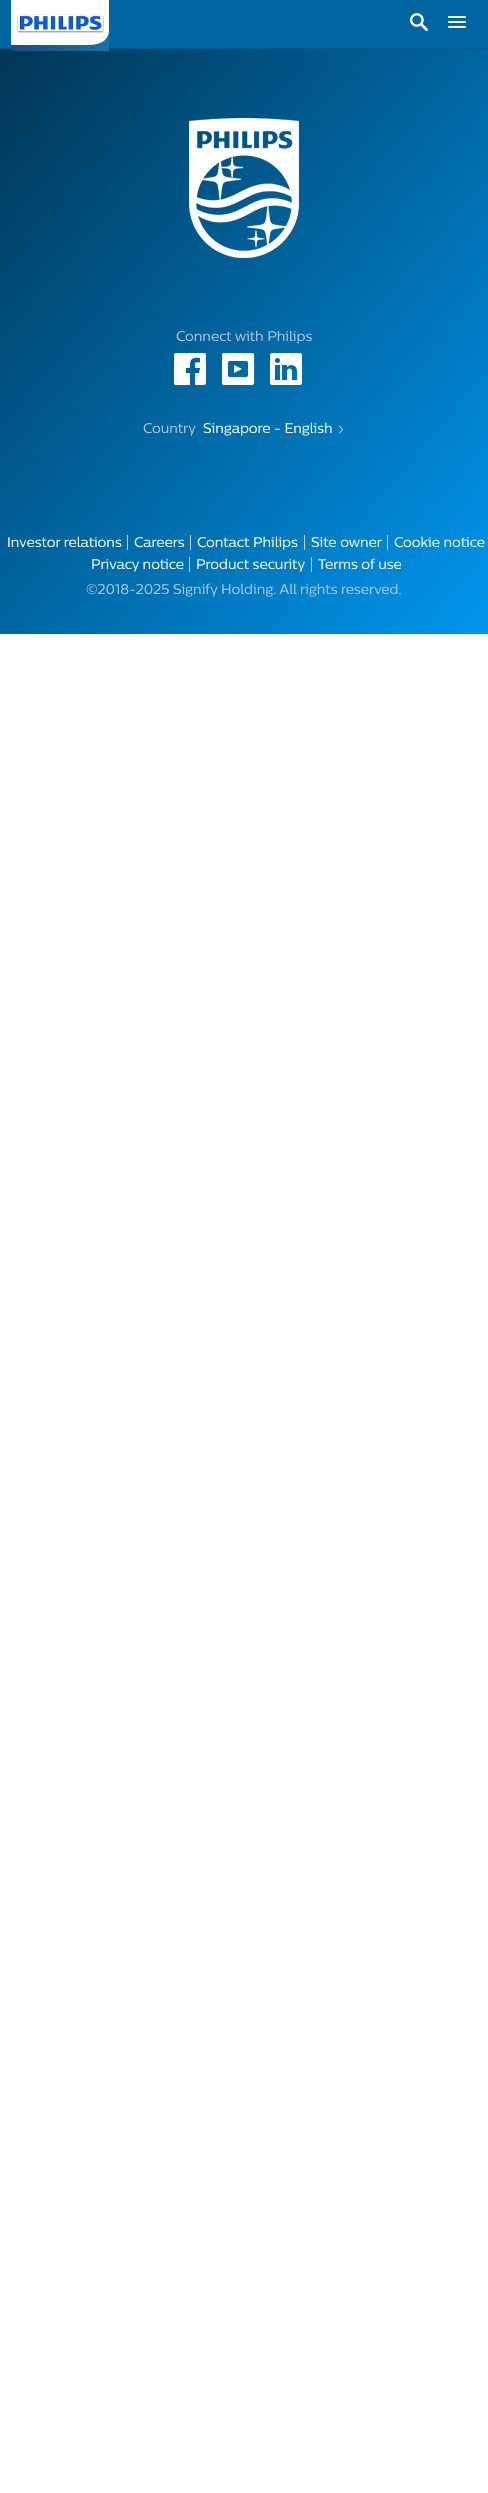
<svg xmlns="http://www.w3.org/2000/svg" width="488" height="2493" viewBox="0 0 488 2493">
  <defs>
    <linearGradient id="g1" gradientUnits="userSpaceOnUse" x1="-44" y1="101" x2="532" y2="581"><stop offset="0" stop-color="#003655"/><stop offset="0.5" stop-color="#0066a1"/><stop offset="1" stop-color="#0096ee"/></linearGradient>
    <linearGradient id="g2" gradientUnits="userSpaceOnUse" x1="11" y1="26" x2="109" y2="25"><stop offset="0" stop-color="#1d4c84"/><stop offset="1" stop-color="#1474a4"/></linearGradient>
  </defs>
  <rect width="100%" height="100%" fill="#ffffff"/>
  <rect x="0" y="0" width="488" height="48" fill="#0066a1"/>
  <rect x="0" y="48" width="488" height="1" fill="#005b90"/>
  <rect x="0" y="49" width="488" height="585" fill="url(#g1)"/>
  <rect x="11" y="30" width="98" height="21" fill="url(#g2)"/>
  <path d="M88 45C99 45 109 41 109 30V0H11V45Z" fill="#ffffff"/>
  <image x="17" y="14" width="87" height="19" href="img1.png"/>
  <image x="410" y="13" width="18" height="19" href="img2.png"/>
  <rect x="448" y="16" width="18" height="2" rx="1" fill="#ffffff"/>
  <rect x="448" y="21" width="18" height="2" rx="1" fill="#ffffff"/>
  <rect x="448" y="26" width="18" height="2" rx="1" fill="#ffffff"/>
  <image x="189" y="118" width="110" height="140" href="img3.png"/>
  <text x="176" y="341" font-family="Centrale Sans" font-size="14" fill="#b3c8e6">Connect with Philips</text>
  <image x="174" y="353" width="32" height="33" href="img4.png"/>
  <image x="222" y="353" width="33" height="32" href="img5.png"/>
  <image x="270" y="353" width="32" height="32" href="img6.png"/>
  <text x="143" y="433" font-family="Centrale Sans" font-size="14" fill="#b3c8e6">Country</text>
  <text x="203" y="433" font-family="Centrale Sans" font-size="14" fill="#ffffff">Singapore - English</text>
  <image x="339" y="425" width="4" height="9" href="img7.png"/>
  <text x="7" y="547" font-family="Centrale Sans" font-size="14" fill="#ffffff">Investor relations</text>
  <rect x="127" y="535" width="1" height="15" fill="#ccced8"/>
  <text x="134" y="547" font-family="Centrale Sans" font-size="14" fill="#ffffff">Careers</text>
  <rect x="190" y="535" width="1" height="15" fill="#ccced8"/>
  <text x="197" y="547" font-family="Centrale Sans" font-size="14" fill="#ffffff">Contact Philips</text>
  <rect x="304" y="535" width="1" height="15" fill="#ccced8"/>
  <text x="311" y="547" font-family="Centrale Sans" font-size="14" fill="#ffffff">Site owner</text>
  <rect x="387" y="535" width="1" height="15" fill="#ccced8"/>
  <text x="394" y="547" font-family="Centrale Sans" font-size="14" fill="#ffffff">Cookie notice</text>
  <text x="91" y="569" font-family="Centrale Sans" font-size="14" fill="#ffffff">Privacy notice</text>
  <rect x="189" y="557" width="1" height="15" fill="#ccced8"/>
  <text x="196" y="569" font-family="Centrale Sans" font-size="14" fill="#ffffff">Product security</text>
  <rect x="311" y="557" width="1" height="15" fill="#ccced8"/>
  <text x="318" y="569" font-family="Centrale Sans" font-size="14" fill="#ffffff">Terms of use</text>
  <text x="86" y="594" font-family="Centrale Sans" font-size="14" fill="#b3c8e6">©2018-2025 Signify Holding. All rights reserved.</text>
</svg>
